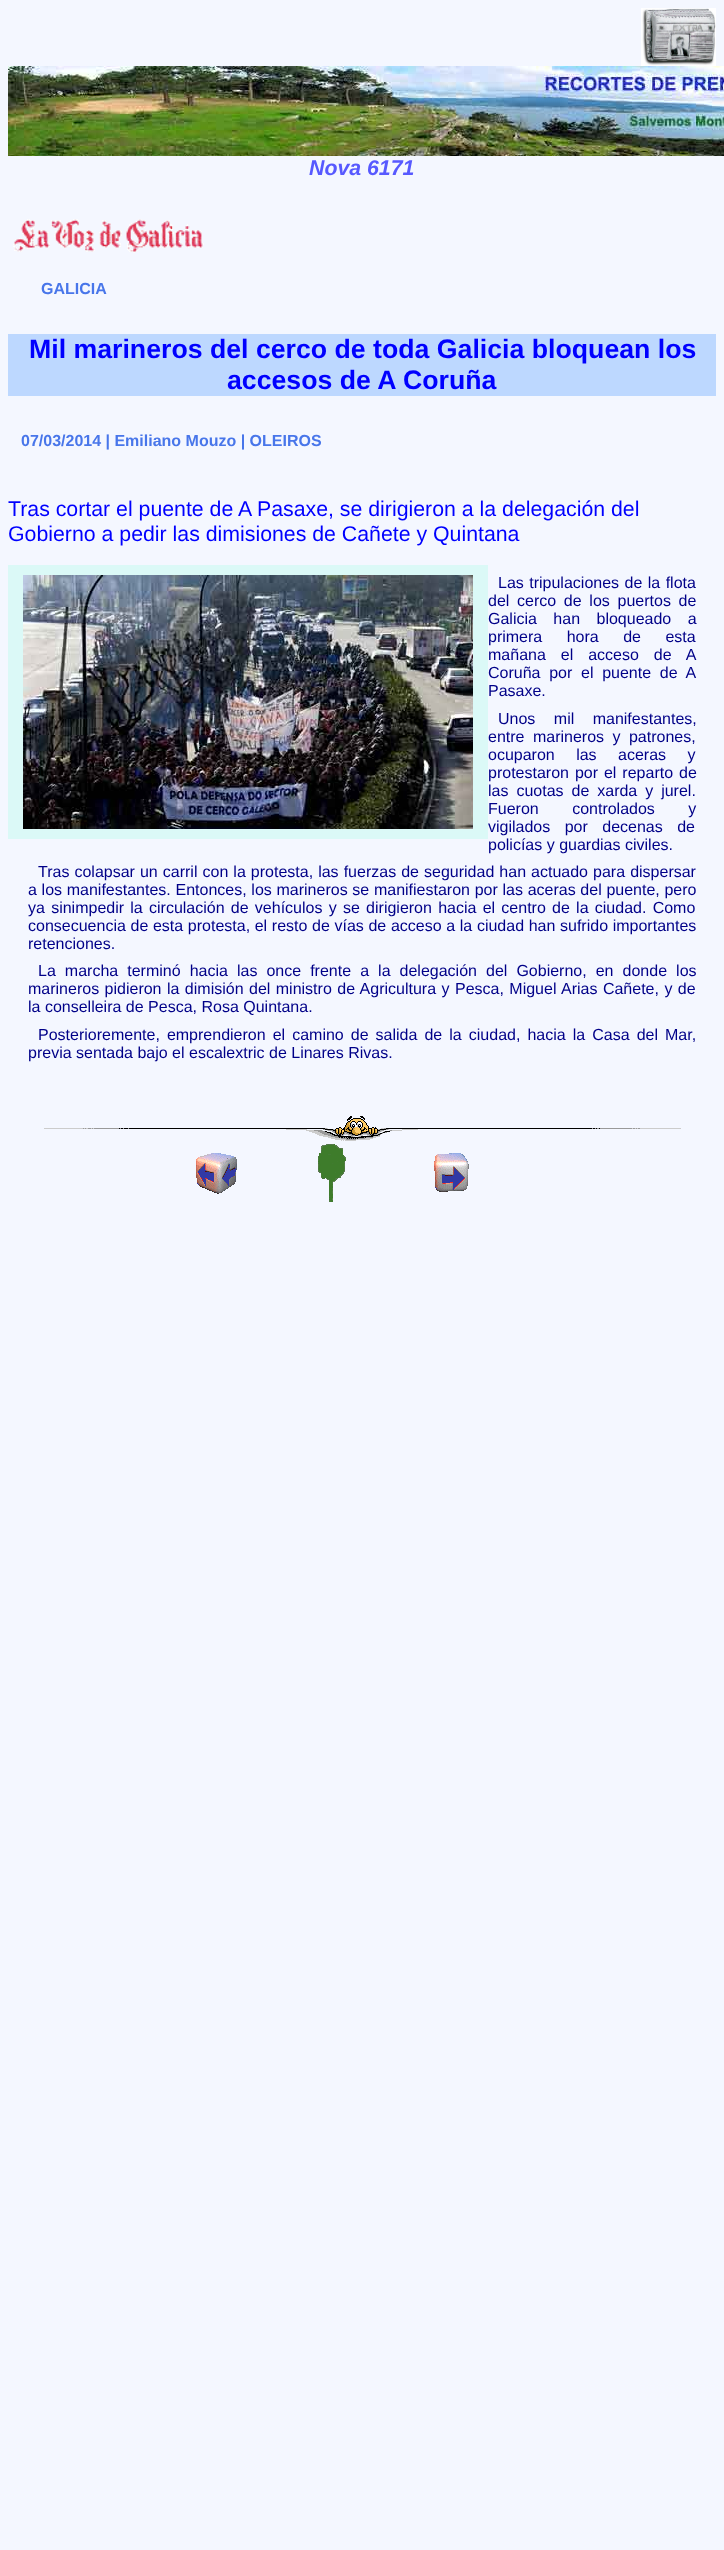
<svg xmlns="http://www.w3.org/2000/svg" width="724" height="2550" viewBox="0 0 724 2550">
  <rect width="100%" height="100%" fill="#f4f7ff"/>
  <image x="641" y="8" width="75" height="58" href="img1.png"/>
  <image x="8" y="66" width="716" height="90" href="img2.png"/>
  <text x="309" y="175" font-family="Liberation Sans" font-size="21.3" font-weight="bold" font-style="italic" fill="#5759ff">Nova 6171</text>
  <image x="13" y="219" width="191" height="34" href="img3.png"/>
  <text x="41" y="294" font-family="Liberation Sans" font-size="16" font-weight="bold" fill="#4876ea">GALICIA</text>
  <rect x="8" y="334" width="708" height="62" fill="#bdd8ff"/>
  <text x="29" y="358" font-family="Liberation Sans" font-size="26.7" font-weight="bold" fill="#0000ff">Mil marineros del cerco de toda Galicia bloquean los</text>
  <text x="227" y="389" font-family="Liberation Sans" font-size="26.7" font-weight="bold" fill="#0000ff">accesos de A Coruña</text>
  <text x="21" y="446" font-family="Liberation Sans" font-size="16" font-weight="bold" fill="#4876ea">07/03/2014 | Emiliano Mouzo | OLEIROS</text>
  <text x="8" y="516" font-family="Liberation Sans" font-size="21.3" fill="#0000ff">Tras cortar el puente de A Pasaxe, se dirigieron a la delegación del</text>
  <text x="8" y="541" font-family="Liberation Sans" font-size="21.3" fill="#0000ff">Gobierno a pedir las dimisiones de Cañete y Quintana</text>
  <rect x="8" y="565" width="480" height="274" fill="#dbf9f7"/>
  <image x="23" y="575" width="450" height="254" href="img4.png"/>
  <text x="498" y="588" word-spacing="1" font-family="Liberation Sans" font-size="16" fill="#000088">Las tripulaciones de la flota</text>
  <text x="488" y="606" word-spacing="3.25" font-family="Liberation Sans" font-size="16" fill="#000088">del cerco de los puertos de</text>
  <text x="488" y="624" word-spacing="12" font-family="Liberation Sans" font-size="16" fill="#000088">Galicia han bloqueado a</text>
  <text x="488" y="642" word-spacing="20" font-family="Liberation Sans" font-size="16" fill="#000088">primera hora de esta</text>
  <text x="488" y="660" word-spacing="10.5" font-family="Liberation Sans" font-size="16" fill="#000088">mañana el acceso de A</text>
  <text x="488" y="678" word-spacing="4.25" font-family="Liberation Sans" font-size="16" fill="#000088">Coruña por el puente de A</text>
  <text x="488" y="696" font-family="Liberation Sans" font-size="16" fill="#000088">Pasaxe.</text>
  <text x="498" y="724" word-spacing="14" font-family="Liberation Sans" font-size="16" fill="#000088">Unos mil manifestantes,</text>
  <text x="488" y="742" word-spacing="4" font-family="Liberation Sans" font-size="16" fill="#000088">entre marineros y patrones,</text>
  <text x="488" y="760" word-spacing="17" font-family="Liberation Sans" font-size="16" fill="#000088">ocuparon las aceras y</text>
  <text x="488" y="778" word-spacing="1.5" font-family="Liberation Sans" font-size="16" fill="#000088">protestaron por el reparto de</text>
  <text x="488" y="796" word-spacing="3.5" font-family="Liberation Sans" font-size="16" fill="#000088">las cuotas de xarda y jurel.</text>
  <text x="488" y="814" word-spacing="29" font-family="Liberation Sans" font-size="16" fill="#000088">Fueron controlados y</text>
  <text x="488" y="832" word-spacing="10" font-family="Liberation Sans" font-size="16" fill="#000088">vigilados por decenas de</text>
  <text x="488" y="850" font-family="Liberation Sans" font-size="16" fill="#000088">policías y guardias civiles.</text>
  <text x="38" y="877" word-spacing="0.6" font-family="Liberation Sans" font-size="16" fill="#000088">Tras colapsar un carril con la protesta, las fuerzas de seguridad han actuado para dispersar</text>
  <text x="28" y="895" word-spacing="0.25" font-family="Liberation Sans" font-size="16" fill="#000088">a los manifestantes. Entonces, los marineros se manifiestaron por las aceras del puente, pero</text>
  <text x="28" y="913" word-spacing="1.8" font-family="Liberation Sans" font-size="16" fill="#000088">ya sinimpedir la circulación de vehículos y se dirigieron hacia el centro de la ciudad. Como</text>
  <text x="28" y="931" word-spacing="0.2" font-family="Liberation Sans" font-size="16" fill="#000088">consecuencia de esta protesta, el resto de vías de acceso a la ciudad han sufrido importantes</text>
  <text x="28" y="949" font-family="Liberation Sans" font-size="16" fill="#000088">retenciones.</text>
  <text x="38" y="976" word-spacing="4.6" font-family="Liberation Sans" font-size="16" fill="#000088">La marcha terminó hacia las once frente a la delegación del Gobierno, en donde los</text>
  <text x="28" y="994" word-spacing="1" font-family="Liberation Sans" font-size="16" fill="#000088">marineros pidieron la dimisión del ministro de Agricultura y Pesca, Miguel Arias Cañete, y de</text>
  <text x="28" y="1012" font-family="Liberation Sans" font-size="16" fill="#000088">la conselleira de Pesca, Rosa Quintana.</text>
  <text x="38" y="1040" word-spacing="2.6" font-family="Liberation Sans" font-size="16" fill="#000088">Posterioremente, emprendieron el camino de salida de la ciudad, hacia la Casa del Mar,</text>
  <text x="28" y="1058" font-family="Liberation Sans" font-size="16" fill="#000088">previa sentada bajo el escalextric de Linares Rivas.</text>
  <image x="44" y="1116" width="637" height="25" href="img5.png"/>
  <image x="196" y="1153" width="41" height="41" href="img6.png"/>
  <image x="318" y="1144" width="28" height="58" href="img7.png"/>
  <image x="434" y="1153" width="35" height="39" href="img8.png"/>
</svg>
